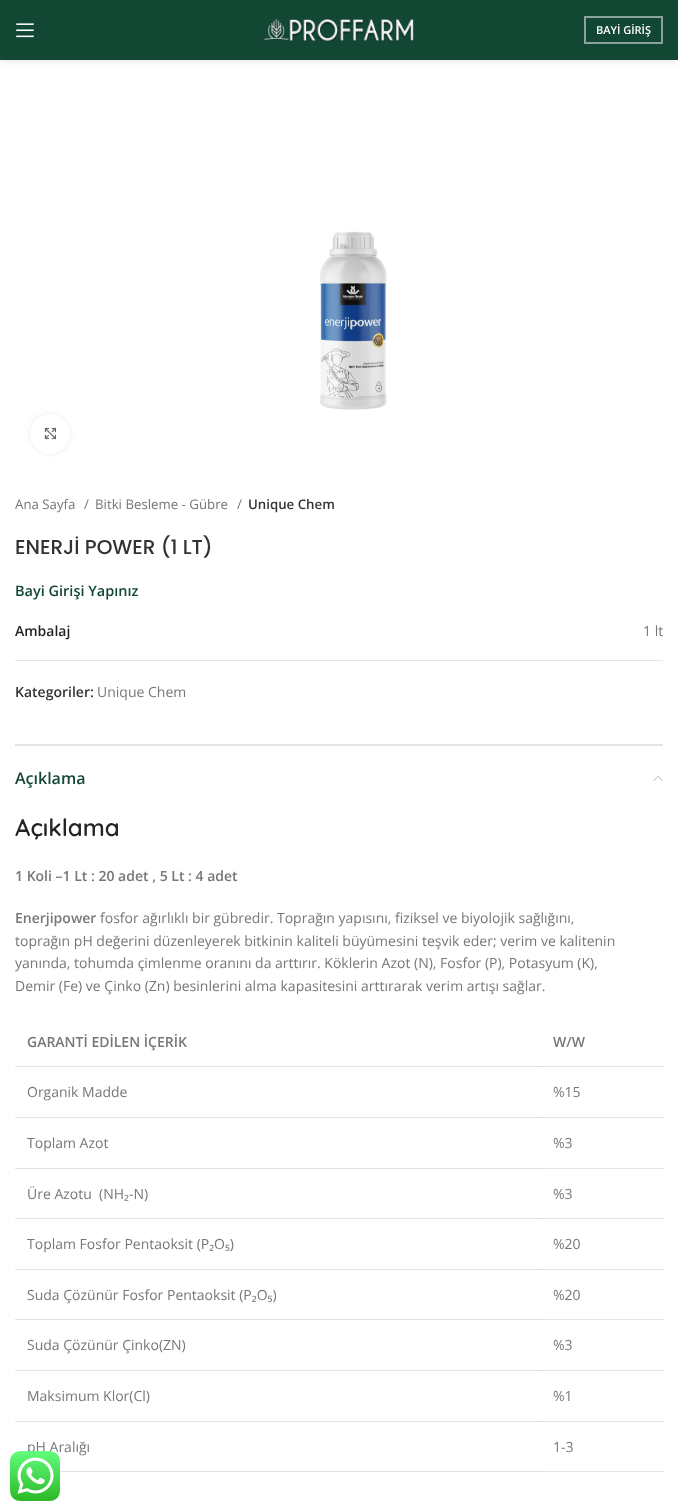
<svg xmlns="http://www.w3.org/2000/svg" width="678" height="1511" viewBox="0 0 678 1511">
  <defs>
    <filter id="blur1" x="-50%" y="-200%" width="200%" height="500%"><feGaussianBlur stdDeviation="4"/></filter>
    <filter id="blur2" x="-50%" y="-200%" width="200%" height="500%"><feGaussianBlur stdDeviation="2.5"/></filter>
  </defs>
  <rect width="100%" height="100%" fill="#ffffff"/>
  <rect x="15" y="1066" width="526" height="1" fill="#e3e3e3"/>
  <rect x="15" y="1117" width="526" height="1" fill="#e3e3e3"/>
  <rect x="15" y="1168" width="526" height="1" fill="#e3e3e3"/>
  <rect x="15" y="1218" width="526" height="1" fill="#e3e3e3"/>
  <rect x="15" y="1269" width="526" height="1" fill="#e3e3e3"/>
  <rect x="15" y="1319" width="526" height="1" fill="#e3e3e3"/>
  <rect x="15" y="1370" width="526" height="1" fill="#e3e3e3"/>
  <rect x="15" y="1421" width="526" height="1" fill="#e3e3e3"/>
  <rect x="60" y="1471" width="481" height="1" fill="#e3e3e3"/>
  <rect x="0" y="1" width="678" height="60" fill="#000000" fill-opacity="0.1" filter="url(#blur1)"/>
  <rect x="0" y="0" width="678" height="60" fill="#124734"/>
  <image x="16" y="23" width="18" height="15" href="img1.png"/>
  <image x="264" y="19" width="150" height="22" href="img2.png"/>
  <rect x="585" y="17" width="77" height="26" fill="none" stroke="#89a39a" stroke-width="2"/>
  <text x="596" y="34" font-family="Open Sans" font-size="11" font-weight="600" fill="#ffffff">BAYİ GİRİŞ</text>
  <image x="319" y="231" width="68" height="179" href="img3.png"/>
  <rect x="30" y="414" width="40" height="40" rx="20" fill="#000000" fill-opacity="0.08" filter="url(#blur2)"/>
  <circle cx="50" cy="434" r="20" fill="#ffffff"/>
  <image x="44" y="427" width="12" height="13" href="img4.png"/>
  <text x="15" y="509" font-family="Open Sans" font-size="13.25" fill="#777777">Ana Sayfa</text>
  <text x="84" y="509" font-family="Open Sans" font-size="13.25" fill="#777777">/</text>
  <text x="95" y="509" font-family="Open Sans" font-size="13.25" fill="#777777">Bitki Besleme - Gübre</text>
  <text x="237" y="509" font-family="Open Sans" font-size="13.25" fill="#777777">/</text>
  <text x="248" y="509" font-family="Open Sans" font-size="13.25" font-weight="600" fill="#333333">Unique Chem</text>
  <text x="15" y="554" font-family="Poppins" font-size="20" font-weight="500" fill="#333333">ENERJİ POWER (1 LT)</text>
  <text x="15" y="596" font-family="Open Sans" font-size="14.5" font-weight="600" fill="#124734">Bayi Girişi Yapınız</text>
  <text x="15" y="636" font-family="Open Sans" font-size="14" font-weight="600" fill="#242424">Ambalaj</text>
  <text x="643" y="636" font-family="Open Sans" font-size="14" fill="#777777">1 lt</text>
  <rect x="15" y="660" width="648" height="1" fill="#e4e4e4"/>
  <text x="15" y="697" font-family="Open Sans" font-size="14" font-weight="600" fill="#333333">Kategoriler:</text>
  <text x="97" y="697" font-family="Open Sans" font-size="14" fill="#777777">Unique Chem</text>
  <rect x="15" y="744" width="648" height="2" fill="#e4e4e4"/>
  <text x="15" y="784" font-family="Open Sans" font-size="16" font-weight="600" fill="#124734">Açıklama</text>
  <image x="653" y="776" width="10" height="5" href="img5.png"/>
  <text x="15" y="836" font-family="Quicksand" font-size="24" font-weight="600" fill="#242424">Açıklama</text>
  <text x="15" y="881" font-family="Open Sans" font-size="14" font-weight="600" fill="#777777">1 Koli –1 Lt : 20 adet , 5 Lt : 4 adet</text>
  <text x="15" y="923" font-family="Open Sans" font-size="14" font-weight="600" fill="#777777">Enerjipower</text>
  <text x="100" y="923" font-family="Open Sans" font-size="14" fill="#777777">fosfor ağırlıklı bir gübredir. Toprağın yapısını, fiziksel ve biyolojik sağlığını,</text>
  <text x="15" y="946" font-family="Open Sans" font-size="14" fill="#777777">toprağın pH değerini düzenleyerek bitkinin kaliteli büyümesini teşvik eder; verim ve kalitenin</text>
  <text x="15" y="968" font-family="Open Sans" font-size="14" fill="#777777">yanında, tohumda çimlenme oranını da arttırır. Köklerin Azot (N), Fosfor (P), Potasyum (K),</text>
  <text x="15" y="991" font-family="Open Sans" font-size="14" fill="#777777">Demir (Fe) ve Çinko (Zn) besinlerini alma kapasitesini arttırarak verim artışı sağlar.</text>
  <text x="27" y="1047" font-family="Open Sans" font-size="14" font-weight="600" fill="#777777">GARANTİ EDİLEN İÇERİK</text>
  <rect x="540" y="1066" width="124" height="1" fill="#e4e4e4"/>
  <rect x="540" y="1066" width="1" height="1" fill="#cbcbcb"/>
  <text x="553" y="1047" font-family="Open Sans" font-size="14" font-weight="600" fill="#777777">W/W</text>
  <text x="27" y="1097" font-family="Open Sans" font-size="14" fill="#777777">Organik Madde</text>
  <rect x="540" y="1117" width="124" height="1" fill="#e4e4e4"/>
  <rect x="540" y="1117" width="1" height="1" fill="#cbcbcb"/>
  <text x="553" y="1097" font-family="Open Sans" font-size="14" fill="#777777">%15</text>
  <text x="27" y="1148" font-family="Open Sans" font-size="14" fill="#777777">Toplam Azot</text>
  <rect x="540" y="1168" width="124" height="1" fill="#e4e4e4"/>
  <rect x="540" y="1168" width="1" height="1" fill="#cbcbcb"/>
  <text x="553" y="1148" font-family="Open Sans" font-size="14" fill="#777777">%3</text>
  <text x="27" y="1199" font-family="Open Sans" font-size="14" fill="#777777" xml:space="preserve">Üre Azotu  (NH₂-N)</text>
  <rect x="540" y="1218" width="124" height="1" fill="#e4e4e4"/>
  <rect x="540" y="1218" width="1" height="1" fill="#cbcbcb"/>
  <text x="553" y="1199" font-family="Open Sans" font-size="14" fill="#777777">%3</text>
  <text x="27" y="1249" font-family="Open Sans" font-size="14" fill="#777777">Toplam Fosfor Pentaoksit (P₂O₅)</text>
  <rect x="540" y="1269" width="124" height="1" fill="#e4e4e4"/>
  <rect x="540" y="1269" width="1" height="1" fill="#cbcbcb"/>
  <text x="553" y="1249" font-family="Open Sans" font-size="14" fill="#777777">%20</text>
  <text x="27" y="1300" font-family="Open Sans" font-size="14" fill="#777777">Suda Çözünür Fosfor Pentaoksit (P₂O₅)</text>
  <rect x="540" y="1319" width="124" height="1" fill="#e4e4e4"/>
  <rect x="540" y="1319" width="1" height="1" fill="#cbcbcb"/>
  <text x="553" y="1300" font-family="Open Sans" font-size="14" fill="#777777">%20</text>
  <text x="27" y="1350" font-family="Open Sans" font-size="14" fill="#777777">Suda Çözünür Çinko(ZN)</text>
  <rect x="540" y="1370" width="124" height="1" fill="#e4e4e4"/>
  <rect x="540" y="1370" width="1" height="1" fill="#cbcbcb"/>
  <text x="553" y="1350" font-family="Open Sans" font-size="14" fill="#777777">%3</text>
  <text x="27" y="1401" font-family="Open Sans" font-size="14" fill="#777777">Maksimum Klor(Cl)</text>
  <rect x="540" y="1421" width="124" height="1" fill="#e4e4e4"/>
  <rect x="540" y="1421" width="1" height="1" fill="#cbcbcb"/>
  <text x="553" y="1401" font-family="Open Sans" font-size="14" fill="#777777">%1</text>
  <text x="27" y="1452" font-family="Open Sans" font-size="14" fill="#777777">pH Aralığı</text>
  <rect x="540" y="1471" width="124" height="1" fill="#e4e4e4"/>
  <rect x="540" y="1471" width="1" height="1" fill="#cbcbcb"/>
  <text x="553" y="1452" font-family="Open Sans" font-size="14" fill="#777777">1-3</text>
  <image x="10" y="1451" width="50" height="50" href="img6.png"/>
</svg>
